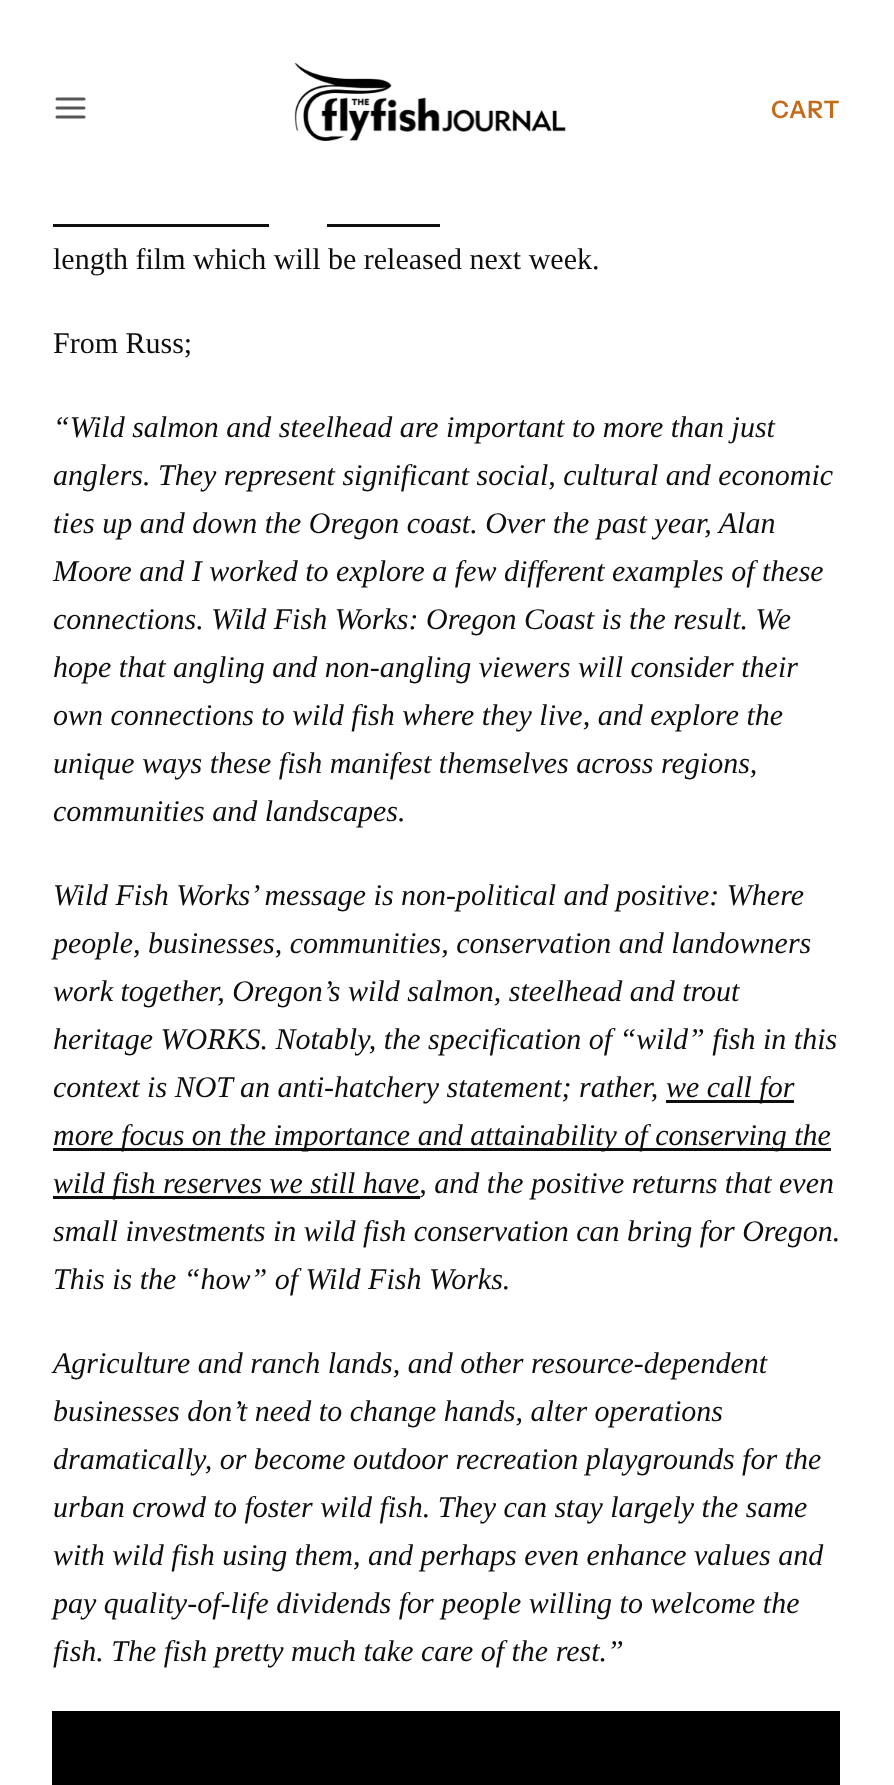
<svg xmlns="http://www.w3.org/2000/svg" width="894" height="1785" viewBox="0 0 894 1785">
  <rect width="100%" height="100%" fill="#ffffff"/>
  <path d="M57 108H84M57 99H84M57 117H84" fill="none" stroke="#565657" stroke-width="3" stroke-linecap="round" stroke-linejoin="round"/>
  <image x="294" y="63" width="272" height="78" href="img1.png"/>
  <text x="771" y="118" font-family="Instrument Sans" font-size="24" font-weight="600" letter-spacing="1" fill="#c36d1c">CART</text>
  <rect x="53" y="224" width="216" height="3" fill="#0d0e0f"/>
  <rect x="327" y="224" width="113" height="3" fill="#0d0e0f"/>
  <text x="53" y="269" font-family="Liberation Serif" font-size="30" fill="#0d0e0f">length film which will be released next week.</text>
  <text x="53" y="353" font-family="Liberation Serif" font-size="30" fill="#0d0e0f">From Russ;</text>
  <text x="53" y="437" font-family="Liberation Serif" font-size="30" font-style="italic" fill="#0d0e0f">“Wild salmon and steelhead are important to more than just</text>
  <text x="53" y="485" font-family="Liberation Serif" font-size="30" font-style="italic" fill="#0d0e0f">anglers. They represent significant social, cultural and economic</text>
  <text x="53" y="533" font-family="Liberation Serif" font-size="30" font-style="italic" fill="#0d0e0f">ties up and down the Oregon coast. Over the past year, Alan</text>
  <text x="53" y="581" font-family="Liberation Serif" font-size="30" font-style="italic" fill="#0d0e0f">Moore and I worked to explore a few different examples of these</text>
  <text x="53" y="629" font-family="Liberation Serif" font-size="30" font-style="italic" fill="#0d0e0f">connections. Wild Fish Works: Oregon Coast is the result. We</text>
  <text x="53" y="677" font-family="Liberation Serif" font-size="30" font-style="italic" fill="#0d0e0f">hope that angling and non-angling viewers will consider their</text>
  <text x="53" y="725" font-family="Liberation Serif" font-size="30" font-style="italic" fill="#0d0e0f">own connections to wild fish where they live, and explore the</text>
  <text x="53" y="773" font-family="Liberation Serif" font-size="30" font-style="italic" fill="#0d0e0f">unique ways these fish manifest themselves across regions,</text>
  <text x="53" y="821" font-family="Liberation Serif" font-size="30" font-style="italic" fill="#0d0e0f">communities and landscapes.</text>
  <text x="53" y="905" font-family="Liberation Serif" font-size="30" font-style="italic" fill="#0d0e0f">Wild Fish Works’ message is non-political and positive: Where</text>
  <text x="53" y="953" font-family="Liberation Serif" font-size="30" font-style="italic" fill="#0d0e0f">people, businesses, communities, conservation and landowners</text>
  <text x="53" y="1001" font-family="Liberation Serif" font-size="30" font-style="italic" fill="#0d0e0f">work together, Oregon’s wild salmon, steelhead and trout</text>
  <text x="53" y="1049" font-family="Liberation Serif" font-size="30" font-style="italic" fill="#0d0e0f">heritage WORKS. Notably, the specification of “wild” fish in this</text>
  <text x="53" y="1097" font-family="Liberation Serif" font-size="30" font-style="italic" fill="#0d0e0f">context is NOT an anti-hatchery statement; rather,</text>
  <rect x="666" y="1100" width="128" height="3" fill="#0d0e0f"/>
  <text x="666" y="1097" font-family="Liberation Serif" font-size="30" font-style="italic" fill="#0d0e0f">we call for</text>
  <rect x="53" y="1148" width="778" height="3" fill="#0d0e0f"/>
  <text x="53" y="1145" font-family="Liberation Serif" font-size="30" font-style="italic" fill="#0d0e0f">more focus on the importance and attainability of conserving the</text>
  <rect x="53" y="1196" width="367" height="3" fill="#0d0e0f"/>
  <text x="53" y="1193" font-family="Liberation Serif" font-size="30" font-style="italic" fill="#0d0e0f">wild fish reserves we still have, and the positive returns that even</text>
  <text x="53" y="1241" font-family="Liberation Serif" font-size="30" font-style="italic" fill="#0d0e0f">small investments in wild fish conservation can bring for Oregon.</text>
  <text x="53" y="1289" font-family="Liberation Serif" font-size="30" font-style="italic" fill="#0d0e0f">This is the “how” of Wild Fish Works.</text>
  <text x="53" y="1373" font-family="Liberation Serif" font-size="30" font-style="italic" fill="#0d0e0f">Agriculture and ranch lands, and other resource-dependent</text>
  <text x="53" y="1421" font-family="Liberation Serif" font-size="30" font-style="italic" fill="#0d0e0f">businesses don’t need to change hands, alter operations</text>
  <text x="53" y="1469" font-family="Liberation Serif" font-size="30" font-style="italic" fill="#0d0e0f">dramatically, or become outdoor recreation playgrounds for the</text>
  <text x="53" y="1517" font-family="Liberation Serif" font-size="30" font-style="italic" fill="#0d0e0f">urban crowd to foster wild fish. They can stay largely the same</text>
  <text x="53" y="1565" font-family="Liberation Serif" font-size="30" font-style="italic" fill="#0d0e0f">with wild fish using them, and perhaps even enhance values and</text>
  <text x="53" y="1613" font-family="Liberation Serif" font-size="30" font-style="italic" fill="#0d0e0f">pay quality-of-life dividends for people willing to welcome the</text>
  <text x="53" y="1661" font-family="Liberation Serif" font-size="30" font-style="italic" fill="#0d0e0f">fish. The fish pretty much take care of the rest.”</text>
  <rect x="52" y="1711" width="788" height="74" fill="#000000"/>
</svg>
